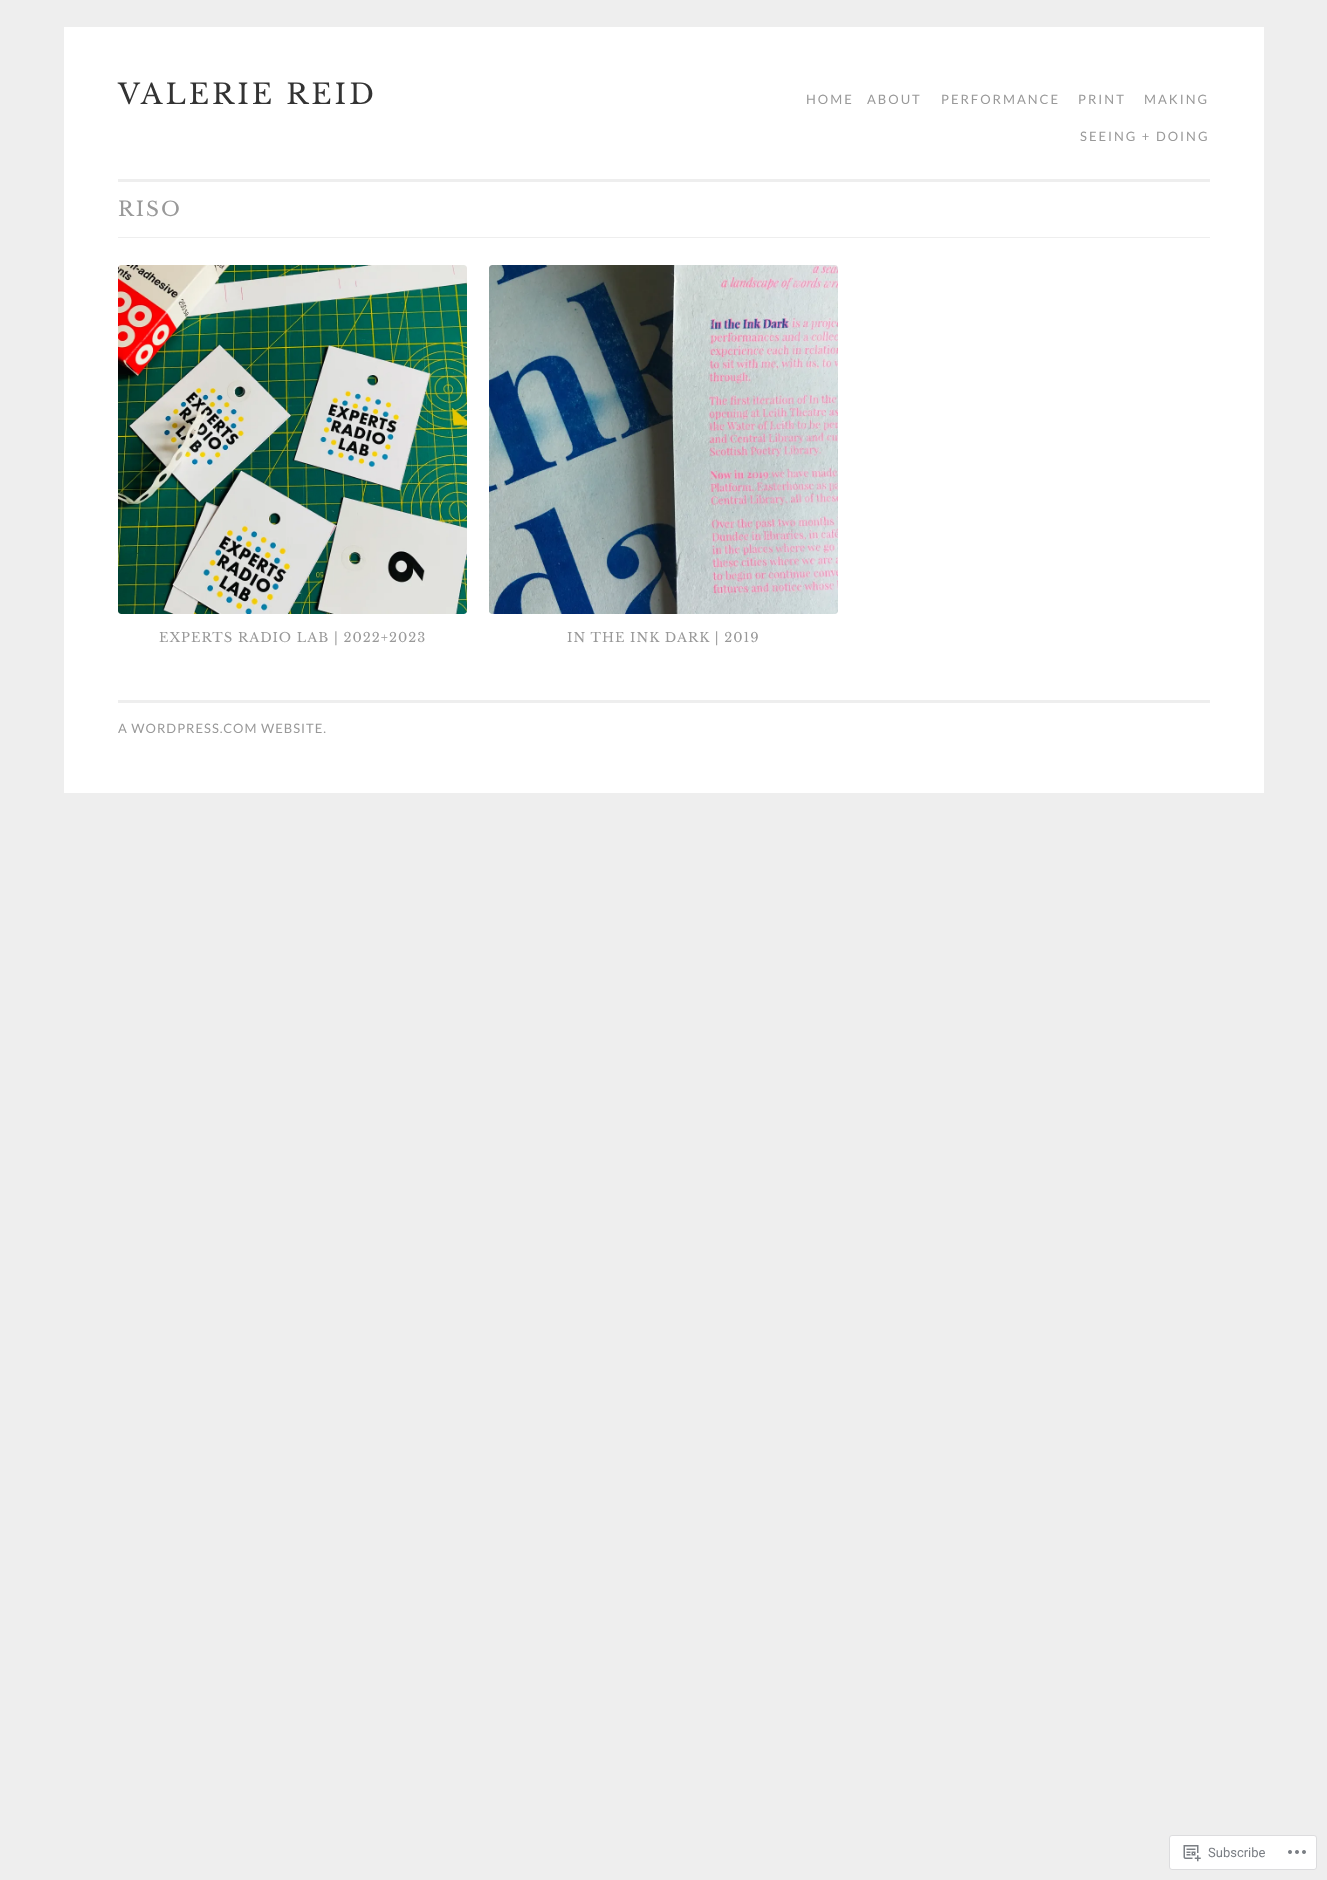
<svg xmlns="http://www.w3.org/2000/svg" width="1327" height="1880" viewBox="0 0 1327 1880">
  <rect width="100%" height="100%" fill="#eeeeee"/>
  <rect x="64" y="27" width="1200" height="766" fill="#ffffff"/>
  <rect x="118" y="179" width="1092" height="3" fill="#eeeeee"/>
  <text x="118" y="104" font-family="Libre Baskerville" font-size="28" letter-spacing="3" fill="#333333">VALERIE REID</text>
  <text x="806" y="104" font-family="Lato" font-size="13" letter-spacing="2" fill="#999999">HOME</text>
  <text x="867" y="104" font-family="Lato" font-size="13" letter-spacing="2" fill="#999999">ABOUT</text>
  <text x="941" y="104" font-family="Lato" font-size="13" letter-spacing="2" fill="#999999">PERFORMANCE</text>
  <text x="1078" y="104" font-family="Lato" font-size="13" letter-spacing="2" fill="#999999">PRINT</text>
  <text x="1144" y="104" font-family="Lato" font-size="13" letter-spacing="2" fill="#999999">MAKING</text>
  <text x="1080" y="141" font-family="Lato" font-size="13" letter-spacing="2" fill="#999999">SEEING + DOING</text>
  <rect x="118" y="237" width="1092" height="1" fill="#eeeeee"/>
  <text x="118" y="216" font-family="Libre Baskerville" font-size="20" letter-spacing="2" fill="#999999">RISO</text>
  <image x="118" y="265" width="349" height="349" href="img1.png"/>
  <text x="159" y="642" font-family="Libre Baskerville" font-size="13" letter-spacing="1" fill="#999999">EXPERTS RADIO LAB | 2022+2023</text>
  <image x="489" y="265" width="349" height="349" href="img2.png"/>
  <text x="567" y="642" font-family="Libre Baskerville" font-size="13" letter-spacing="1" fill="#999999">IN THE INK DARK | 2019</text>
  <rect x="118" y="700" width="1092" height="3" fill="#eeeeee"/>
  <text x="118" y="733" font-family="Lato" font-size="13" letter-spacing="1" fill="#999999">A WORDPRESS.COM WEBSITE.</text>
  <rect x="1169.5" y="1835.5" width="147" height="34" rx="2.5" fill="#ffffff" stroke="#dcdcde"/>
  <image x="1183" y="1845" width="18" height="17" href="img3.png"/>
  <text x="1208" y="1857" font-family="Roboto" font-size="13" fill="#7a7e84">Subscribe</text>
  <image x="1288" y="1850" width="18" height="4" href="img4.png"/>
</svg>
